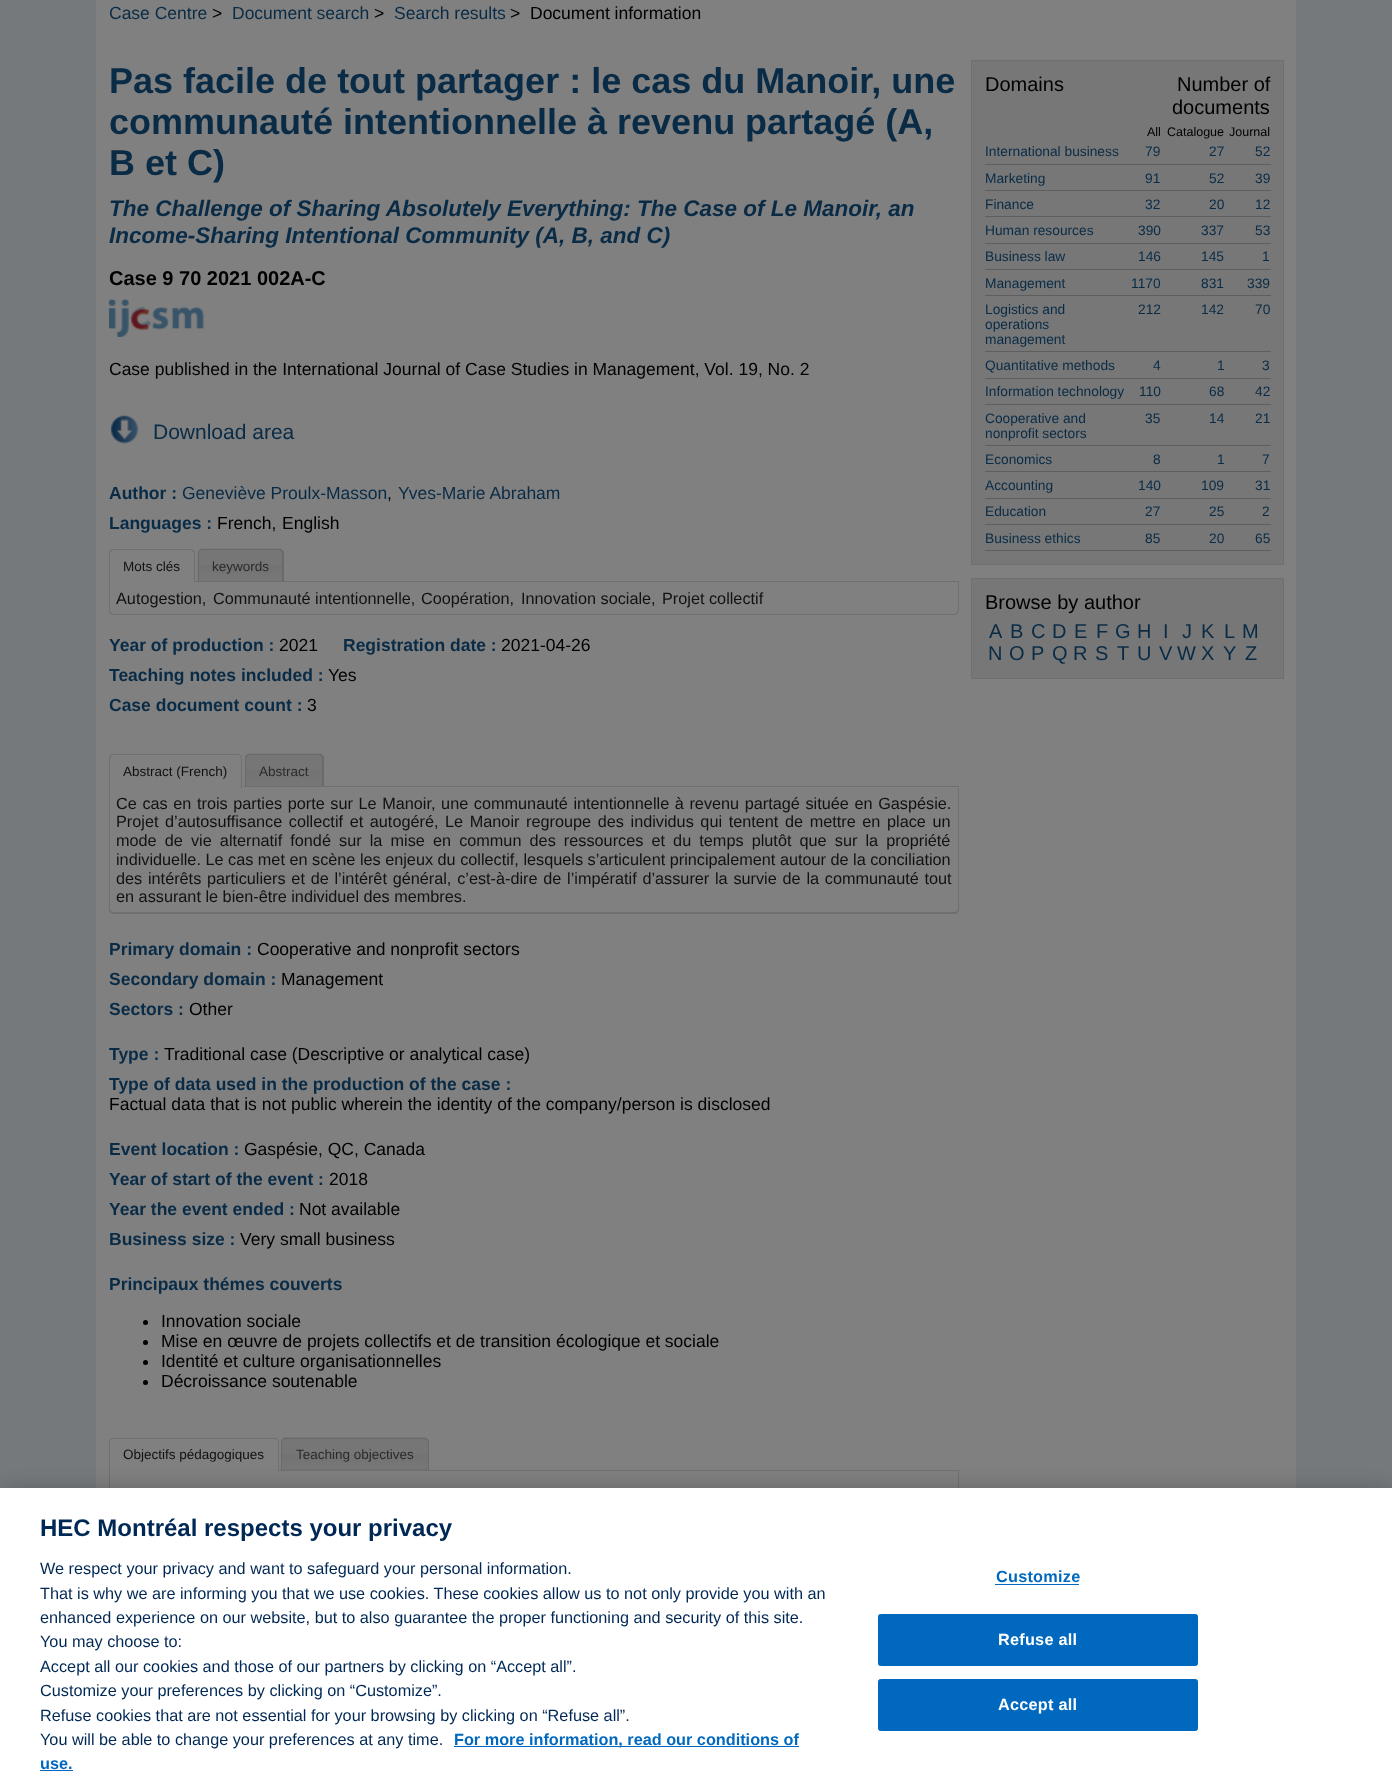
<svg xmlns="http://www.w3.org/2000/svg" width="1392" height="1788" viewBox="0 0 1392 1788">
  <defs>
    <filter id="blur1" x="-50%" y="-200%" width="200%" height="500%"><feGaussianBlur stdDeviation="11"/></filter>
  </defs>
  <rect width="100%" height="100%" fill="#76797b"/>
  <rect x="96" y="0" width="1200" height="1488" fill="#808080"/>
  <text x="109" y="19" font-family="Liberation Sans" font-size="17.5" fill="#092b46">Case Centre</text>
  <text x="212" y="19" font-family="Liberation Sans" font-size="17.5" fill="#000000">&gt;</text>
  <text x="232" y="19" font-family="Liberation Sans" font-size="17.5" fill="#092b46">Document search</text>
  <text x="374" y="19" font-family="Liberation Sans" font-size="17.5" fill="#000000">&gt;</text>
  <text x="394" y="19" font-family="Liberation Sans" font-size="17.5" fill="#092b46">Search results</text>
  <text x="510" y="19" font-family="Liberation Sans" font-size="17.5" fill="#000000">&gt;</text>
  <text x="530" y="19" font-family="Liberation Sans" font-size="17.5" fill="#000000">Document information</text>
  <text x="109" y="93" font-family="Liberation Sans" font-size="36" font-weight="bold" fill="#092b46">Pas facile de tout partager : le cas du Manoir, une</text>
  <text x="109" y="134" font-family="Liberation Sans" font-size="36" font-weight="bold" fill="#092b46">communauté intentionnelle à revenu partagé (A,</text>
  <text x="109" y="175" font-family="Liberation Sans" font-size="36" font-weight="bold" fill="#092b46">B et C)</text>
  <text x="109" y="216" font-family="Liberation Sans" font-size="22.5" font-weight="bold" font-style="italic" fill="#092b46">The Challenge of Sharing Absolutely Everything: The Case of Le Manoir, an</text>
  <text x="109" y="243" font-family="Liberation Sans" font-size="22.5" font-weight="bold" font-style="italic" fill="#092b46">Income-Sharing Intentional Community (A, B, and C)</text>
  <text x="109" y="285" font-family="Liberation Sans" font-size="20" font-weight="bold" fill="#000000">Case 9 70 2021 002A-C</text>
  <image x="108" y="299" width="96" height="38" href="img1.png"/>
  <text x="109" y="375" font-family="Liberation Sans" font-size="17.5" fill="#000000">Case published in the International Journal of Case Studies in Management, Vol. 19, No. 2</text>
  <image x="110" y="414" width="29" height="30" href="img2.png"/>
  <text x="153" y="439" font-family="Liberation Sans" font-size="21" fill="#092b46">Download area</text>
  <text x="109" y="499" font-family="Liberation Sans" font-size="17.5" font-weight="bold" fill="#092b46">Author :</text>
  <text x="182" y="499" font-family="Liberation Sans" font-size="17.5" fill="#092b46">Geneviève Proulx-Masson</text>
  <text x="387" y="499" font-family="Liberation Sans" font-size="17.5" fill="#000000">,</text>
  <text x="398" y="499" font-family="Liberation Sans" font-size="17.5" fill="#092b46">Yves-Marie Abraham</text>
  <text x="109" y="529" font-family="Liberation Sans" font-size="17.5" font-weight="bold" fill="#092b46">Languages :</text>
  <text x="217" y="529" font-family="Liberation Sans" font-size="17.5" fill="#000000">French,</text>
  <text x="282" y="529" font-family="Liberation Sans" font-size="17.5" fill="#000000">English</text>
  <rect x="195" y="581" width="764" height="1" fill="#6f6f6f"/>
  <path d="M110 582H109V610C109 613 111 615 114 615H954C957 615 959 613 959 610V582H958V610C958 612 956 614 954 614H114C112 614 110 612 110 610Z" fill="#6f6f6f"/>
  <path d="M114 549H190C193 549 195 551 195 554V583H109V554C109 551 111 549 114 549Z" fill="#808080"/>
  <path d="M114 549H190C193 549 195 551 195 554V582H109V554C109 551 111 549 114 549ZM114 550H190C192 550 194 552 194 554V582H110V554C110 552 112 550 114 550Z" fill="#6f6f6f" fill-rule="evenodd"/>
  <text x="123" y="571" font-family="Liberation Sans" font-size="13.5" fill="#111111">Mots clés</text>
  <path d="M203 549H279C282 549 284 551 284 554V581H198V554C198 551 200 549 203 549Z" fill="#737373"/>
  <image x="197" y="548" width="86" height="33" href="img3.png"/>
  <path d="M202 549H279C282 549 284 551 284 554V581H198V554C198 551 200 549 202 549ZM202 550H279C281 550 282 552 282 554V581H199V554C199 552 200 550 202 550Z" fill="#6a6a6a" fill-rule="evenodd"/>
  <text x="212" y="571" font-family="Liberation Sans" font-size="13.5" fill="#2b2b2b">keywords</text>
  <text x="116" y="604" font-family="Liberation Sans" font-size="16.25" fill="#111111">Autogestion,</text>
  <text x="213" y="604" font-family="Liberation Sans" font-size="16.25" fill="#111111">Communauté intentionnelle,</text>
  <text x="421" y="604" font-family="Liberation Sans" font-size="16.25" fill="#111111">Coopération,</text>
  <text x="521" y="604" font-family="Liberation Sans" font-size="16.25" fill="#111111">Innovation sociale,</text>
  <text x="662" y="604" font-family="Liberation Sans" font-size="16.25" fill="#111111">Projet collectif</text>
  <text x="109" y="651" font-family="Liberation Sans" font-size="17.5" font-weight="bold" fill="#092b46">Year of production :</text>
  <text x="279" y="651" font-family="Liberation Sans" font-size="17.5" fill="#000000">2021</text>
  <text x="343" y="651" font-family="Liberation Sans" font-size="17.5" font-weight="bold" fill="#092b46">Registration date :</text>
  <text x="501" y="651" font-family="Liberation Sans" font-size="17.5" fill="#000000">2021-04-26</text>
  <text x="109" y="681" font-family="Liberation Sans" font-size="17.5" font-weight="bold" fill="#092b46">Teaching notes included :</text>
  <text x="328" y="681" font-family="Liberation Sans" font-size="17.5" fill="#000000">Yes</text>
  <text x="109" y="711" font-family="Liberation Sans" font-size="17.5" font-weight="bold" fill="#092b46">Case document count :</text>
  <text x="307" y="711" font-family="Liberation Sans" font-size="17.5" fill="#000000">3</text>
  <rect x="243" y="786" width="716" height="1" fill="#6f6f6f"/>
  <path d="M114 754H238C240 754 242 756 242 759V788H109V759C109 756 111 754 114 754ZM114 755H238C240 755 241 757 241 759V788H110V759C110 757 112 755 114 755Z" fill="#6f6f6f" fill-rule="evenodd"/>
  <text x="123" y="776" font-family="Liberation Sans" font-size="13.5" fill="#111111">Abstract (French)</text>
  <path d="M250 754H319C322 754 324 756 324 759V786H245V759C245 756 247 754 250 754Z" fill="#737373"/>
  <image x="245" y="753" width="78" height="33" href="img4.png"/>
  <path d="M250 754H319C322 754 324 756 324 759V786H245V759C245 756 247 754 250 754ZM250 755H319C321 755 322 757 322 759V786H246V759C246 757 248 755 250 755Z" fill="#6a6a6a" fill-rule="evenodd"/>
  <text x="259" y="776" font-family="Liberation Sans" font-size="13.5" fill="#2b2b2b">Abstract</text>
  <path d="M110 788H109V909C109 912 111 914 114 914H954C957 914 959 912 959 909V788H958V909C958 911 956 912 954 912H114C112 912 110 911 110 909Z" fill="#6f6f6f"/>
  <text x="116" y="809" word-spacing="1.1" font-family="Liberation Sans" font-size="16.25" fill="#111111">Ce cas en trois parties porte sur Le Manoir, une communauté intentionnelle à revenu partagé située en Gaspésie.</text>
  <text x="116" y="827" word-spacing="2.1" font-family="Liberation Sans" font-size="16.25" fill="#111111">Projet d’autosuffisance collectif et autogéré, Le Manoir regroupe des individus qui tentent de mettre en place un</text>
  <text x="116" y="846" word-spacing="3.6" font-family="Liberation Sans" font-size="16.25" fill="#111111">mode de vie alternatif fondé sur la mise en commun des ressources et du temps plutôt que sur la propriété</text>
  <text x="116" y="865" font-family="Liberation Sans" font-size="16.25" fill="#111111">individuelle. Le cas met en scène les enjeux du collectif, lesquels s’articulent principalement autour de la conciliation</text>
  <text x="116" y="884" word-spacing="1.25" font-family="Liberation Sans" font-size="16.25" fill="#111111">des intérêts particuliers et de l’intérêt général, c’est-à-dire de l’impératif d’assurer la survie de la communauté tout</text>
  <text x="116" y="902" font-family="Liberation Sans" font-size="16.25" fill="#111111">en assurant le bien-être individuel des membres.</text>
  <text x="109" y="955" font-family="Liberation Sans" font-size="17.5" font-weight="bold" fill="#092b46">Primary domain :</text>
  <text x="257" y="955" font-family="Liberation Sans" font-size="17.5" fill="#000000">Cooperative and nonprofit sectors</text>
  <text x="109" y="985" font-family="Liberation Sans" font-size="17.5" font-weight="bold" fill="#092b46">Secondary domain :</text>
  <text x="281" y="985" font-family="Liberation Sans" font-size="17.5" fill="#000000">Management</text>
  <text x="109" y="1015" font-family="Liberation Sans" font-size="17.5" font-weight="bold" fill="#092b46">Sectors :</text>
  <text x="189" y="1015" font-family="Liberation Sans" font-size="17.5" fill="#000000">Other</text>
  <text x="109" y="1060" font-family="Liberation Sans" font-size="17.5" font-weight="bold" fill="#092b46">Type :</text>
  <text x="164" y="1060" font-family="Liberation Sans" font-size="17.5" fill="#000000">Traditional case (Descriptive or analytical case)</text>
  <text x="109" y="1090" font-family="Liberation Sans" font-size="17.5" font-weight="bold" fill="#092b46">Type of data used in the production of the case :</text>
  <text x="109" y="1110" font-family="Liberation Sans" font-size="17.5" fill="#000000">Factual data that is not public wherein the identity of the company/person is disclosed</text>
  <text x="109" y="1155" font-family="Liberation Sans" font-size="17.5" font-weight="bold" fill="#092b46">Event location :</text>
  <text x="244" y="1155" font-family="Liberation Sans" font-size="17.5" fill="#000000">Gaspésie, QC, Canada</text>
  <text x="109" y="1185" font-family="Liberation Sans" font-size="17.5" font-weight="bold" fill="#092b46">Year of start of the event :</text>
  <text x="329" y="1185" font-family="Liberation Sans" font-size="17.5" fill="#000000">2018</text>
  <text x="109" y="1215" font-family="Liberation Sans" font-size="17.5" font-weight="bold" fill="#092b46">Year the event ended :</text>
  <text x="299" y="1215" font-family="Liberation Sans" font-size="17.5" fill="#000000">Not available</text>
  <text x="109" y="1245" font-family="Liberation Sans" font-size="17.5" font-weight="bold" fill="#092b46">Business size :</text>
  <text x="240" y="1245" font-family="Liberation Sans" font-size="17.5" fill="#000000">Very small business</text>
  <text x="109" y="1290" font-family="Liberation Sans" font-size="17.5" font-weight="bold" fill="#092b46">Principaux thémes couverts</text>
  <circle cx="145.5" cy="1322.5" r="2.5" fill="#000000"/>
  <text x="161" y="1327" font-family="Liberation Sans" font-size="17.5" fill="#000000">Innovation sociale</text>
  <circle cx="145.5" cy="1342.5" r="2.5" fill="#000000"/>
  <text x="161" y="1347" font-family="Liberation Sans" font-size="17.5" fill="#000000">Mise en œuvre de projets collectifs et de transition écologique et sociale</text>
  <circle cx="145.5" cy="1362.5" r="2.5" fill="#000000"/>
  <text x="161" y="1367" font-family="Liberation Sans" font-size="17.5" fill="#000000">Identité et culture organisationnelles</text>
  <circle cx="145.5" cy="1382.5" r="2.5" fill="#000000"/>
  <text x="161" y="1387" font-family="Liberation Sans" font-size="17.5" fill="#000000">Décroissance soutenable</text>
  <rect x="279" y="1470" width="680" height="1" fill="#6f6f6f"/>
  <path d="M114 1438H274C277 1438 279 1440 279 1442V1471H109V1442C109 1440 111 1438 114 1438ZM114 1439H274C276 1439 278 1440 278 1442V1471H110V1442C110 1440 112 1439 114 1439Z" fill="#6f6f6f" fill-rule="evenodd"/>
  <text x="123" y="1459" font-family="Liberation Sans" font-size="13.5" fill="#111111">Objectifs pédagogiques</text>
  <path d="M286 1438H424C427 1438 429 1440 429 1443V1470H281V1443C281 1440 283 1438 286 1438Z" fill="#737373"/>
  <image x="282" y="1437" width="146" height="32" href="img5.png"/>
  <path d="M286 1438H424C427 1438 429 1440 429 1442V1470H281V1442C281 1440 283 1438 286 1438ZM286 1439H424C426 1439 428 1440 428 1442V1470H282V1442C282 1440 284 1439 286 1439Z" fill="#6a6a6a" fill-rule="evenodd"/>
  <text x="296" y="1459" font-family="Liberation Sans" font-size="13.5" fill="#2b2b2b">Teaching objectives</text>
  <path d="M109 1471H959V1662C959 1665 957 1668 954 1668H114C111 1668 109 1665 109 1662ZM110 1471H958V1662C958 1665 956 1666 954 1666H114C112 1666 110 1665 110 1662Z" fill="#6f6f6f" fill-rule="evenodd"/>
  <rect x="971.5" y="60.5" width="312" height="504" fill="#777777" stroke="#6f6f6f"/>
  <text x="985" y="91" font-family="Liberation Sans" font-size="20" fill="#000000">Domains</text>
  <text x="1177" y="91" font-family="Liberation Sans" font-size="20" fill="#000000">Number of</text>
  <text x="1172" y="114" font-family="Liberation Sans" font-size="20" fill="#000000">documents</text>
  <text x="1147" y="136" font-family="Liberation Sans" font-size="12.5" fill="#000000">All</text>
  <text x="1167" y="136" font-family="Liberation Sans" font-size="12.5" fill="#000000">Catalogue</text>
  <text x="1229" y="136" font-family="Liberation Sans" font-size="12.5" fill="#000000">Journal</text>
  <text x="985" y="156" font-family="Liberation Sans" font-size="13.75" fill="#092b46">International business</text>
  <text x="1145" y="156" font-family="Liberation Sans" font-size="13.75" fill="#092b46">79</text>
  <text x="1209" y="156" font-family="Liberation Sans" font-size="13.75" fill="#092b46">27</text>
  <rect x="985" y="164" width="286" height="1" fill="#5e5e5e"/>
  <text x="1255" y="156" font-family="Liberation Sans" font-size="13.75" fill="#092b46">52</text>
  <text x="985" y="183" font-family="Liberation Sans" font-size="13.75" fill="#092b46">Marketing</text>
  <text x="1145" y="183" font-family="Liberation Sans" font-size="13.75" fill="#092b46">91</text>
  <text x="1209" y="183" font-family="Liberation Sans" font-size="13.75" fill="#092b46">52</text>
  <rect x="985" y="190" width="286" height="1" fill="#5e5e5e"/>
  <text x="1255" y="183" font-family="Liberation Sans" font-size="13.75" fill="#092b46">39</text>
  <text x="985" y="209" font-family="Liberation Sans" font-size="13.75" fill="#092b46">Finance</text>
  <text x="1145" y="209" font-family="Liberation Sans" font-size="13.75" fill="#092b46">32</text>
  <text x="1209" y="209" font-family="Liberation Sans" font-size="13.75" fill="#092b46">20</text>
  <rect x="985" y="216" width="286" height="1" fill="#5e5e5e"/>
  <text x="1255" y="209" font-family="Liberation Sans" font-size="13.75" fill="#092b46">12</text>
  <text x="985" y="235" font-family="Liberation Sans" font-size="13.75" fill="#092b46">Human resources</text>
  <text x="1138" y="235" font-family="Liberation Sans" font-size="13.75" fill="#092b46">390</text>
  <text x="1201" y="235" font-family="Liberation Sans" font-size="13.75" fill="#092b46">337</text>
  <rect x="985" y="243" width="286" height="1" fill="#5e5e5e"/>
  <text x="1255" y="235" font-family="Liberation Sans" font-size="13.75" fill="#092b46">53</text>
  <text x="985" y="261" font-family="Liberation Sans" font-size="13.75" fill="#092b46">Business law</text>
  <text x="1138" y="261" font-family="Liberation Sans" font-size="13.75" fill="#092b46">146</text>
  <text x="1201" y="261" font-family="Liberation Sans" font-size="13.75" fill="#092b46">145</text>
  <rect x="985" y="269" width="286" height="1" fill="#5e5e5e"/>
  <text x="1262" y="261" font-family="Liberation Sans" font-size="13.75" fill="#092b46">1</text>
  <text x="985" y="288" font-family="Liberation Sans" font-size="13.75" fill="#092b46">Management</text>
  <text x="1131" y="288" font-family="Liberation Sans" font-size="13.75" fill="#092b46">1170</text>
  <text x="1201" y="288" font-family="Liberation Sans" font-size="13.75" fill="#092b46">831</text>
  <rect x="985" y="295" width="286" height="1" fill="#5e5e5e"/>
  <text x="1247" y="288" font-family="Liberation Sans" font-size="13.75" fill="#092b46">339</text>
  <text x="985" y="314" font-family="Liberation Sans" font-size="13.75" fill="#092b46">Logistics and</text>
  <text x="985" y="329" font-family="Liberation Sans" font-size="13.75" fill="#092b46">operations</text>
  <text x="985" y="344" font-family="Liberation Sans" font-size="13.75" fill="#092b46">management</text>
  <text x="1138" y="314" font-family="Liberation Sans" font-size="13.75" fill="#092b46">212</text>
  <text x="1201" y="314" font-family="Liberation Sans" font-size="13.75" fill="#092b46">142</text>
  <rect x="985" y="351" width="286" height="1" fill="#5e5e5e"/>
  <text x="1255" y="314" font-family="Liberation Sans" font-size="13.75" fill="#092b46">70</text>
  <text x="985" y="370" font-family="Liberation Sans" font-size="13.75" fill="#092b46">Quantitative methods</text>
  <text x="1153" y="370" font-family="Liberation Sans" font-size="13.75" fill="#092b46">4</text>
  <text x="1217" y="370" font-family="Liberation Sans" font-size="13.75" fill="#092b46">1</text>
  <rect x="985" y="378" width="286" height="1" fill="#5e5e5e"/>
  <text x="1262" y="370" font-family="Liberation Sans" font-size="13.75" fill="#092b46">3</text>
  <text x="985" y="396" font-family="Liberation Sans" font-size="13.75" fill="#092b46">Information technology</text>
  <text x="1139" y="396" font-family="Liberation Sans" font-size="13.75" fill="#092b46">110</text>
  <text x="1209" y="396" font-family="Liberation Sans" font-size="13.75" fill="#092b46">68</text>
  <rect x="985" y="404" width="286" height="1" fill="#5e5e5e"/>
  <text x="1255" y="396" font-family="Liberation Sans" font-size="13.75" fill="#092b46">42</text>
  <text x="985" y="423" font-family="Liberation Sans" font-size="13.75" fill="#092b46">Cooperative and</text>
  <text x="985" y="438" font-family="Liberation Sans" font-size="13.75" fill="#092b46">nonprofit sectors</text>
  <text x="1145" y="423" font-family="Liberation Sans" font-size="13.75" fill="#092b46">35</text>
  <text x="1209" y="423" font-family="Liberation Sans" font-size="13.75" fill="#092b46">14</text>
  <rect x="985" y="445" width="286" height="1" fill="#5e5e5e"/>
  <text x="1255" y="423" font-family="Liberation Sans" font-size="13.75" fill="#092b46">21</text>
  <text x="985" y="464" font-family="Liberation Sans" font-size="13.75" fill="#092b46">Economics</text>
  <text x="1153" y="464" font-family="Liberation Sans" font-size="13.75" fill="#092b46">8</text>
  <text x="1217" y="464" font-family="Liberation Sans" font-size="13.75" fill="#092b46">1</text>
  <rect x="985" y="471" width="286" height="1" fill="#5e5e5e"/>
  <text x="1262" y="464" font-family="Liberation Sans" font-size="13.75" fill="#092b46">7</text>
  <text x="985" y="490" font-family="Liberation Sans" font-size="13.75" fill="#092b46">Accounting</text>
  <text x="1138" y="490" font-family="Liberation Sans" font-size="13.75" fill="#092b46">140</text>
  <text x="1201" y="490" font-family="Liberation Sans" font-size="13.75" fill="#092b46">109</text>
  <rect x="985" y="498" width="286" height="1" fill="#5e5e5e"/>
  <text x="1255" y="490" font-family="Liberation Sans" font-size="13.75" fill="#092b46">31</text>
  <text x="985" y="516" font-family="Liberation Sans" font-size="13.75" fill="#092b46">Education</text>
  <text x="1145" y="516" font-family="Liberation Sans" font-size="13.75" fill="#092b46">27</text>
  <text x="1209" y="516" font-family="Liberation Sans" font-size="13.75" fill="#092b46">25</text>
  <rect x="985" y="524" width="286" height="1" fill="#5e5e5e"/>
  <text x="1262" y="516" font-family="Liberation Sans" font-size="13.75" fill="#092b46">2</text>
  <text x="985" y="543" font-family="Liberation Sans" font-size="13.75" fill="#092b46">Business ethics</text>
  <text x="1145" y="543" font-family="Liberation Sans" font-size="13.75" fill="#092b46">85</text>
  <text x="1209" y="543" font-family="Liberation Sans" font-size="13.75" fill="#092b46">20</text>
  <rect x="985" y="550" width="286" height="1" fill="#5e5e5e"/>
  <text x="1255" y="543" font-family="Liberation Sans" font-size="13.75" fill="#092b46">65</text>
  <rect x="971.5" y="578.5" width="312" height="100" fill="#777777" stroke="#6f6f6f"/>
  <text x="985" y="609" font-family="Liberation Sans" font-size="20" fill="#000000">Browse by author</text>
  <text x="989" y="638" font-family="Liberation Sans" font-size="20" fill="#092b46">A</text>
  <text x="1010" y="638" font-family="Liberation Sans" font-size="20" fill="#092b46">B</text>
  <text x="1031" y="638" font-family="Liberation Sans" font-size="20" fill="#092b46">C</text>
  <text x="1052" y="638" font-family="Liberation Sans" font-size="20" fill="#092b46">D</text>
  <text x="1074" y="638" font-family="Liberation Sans" font-size="20" fill="#092b46">E</text>
  <text x="1096" y="638" font-family="Liberation Sans" font-size="20" fill="#092b46">F</text>
  <text x="1115" y="638" font-family="Liberation Sans" font-size="20" fill="#092b46">G</text>
  <text x="1137" y="638" font-family="Liberation Sans" font-size="20" fill="#092b46">H</text>
  <text x="1163" y="638" font-family="Liberation Sans" font-size="20" fill="#092b46">I</text>
  <text x="1182" y="638" font-family="Liberation Sans" font-size="20" fill="#092b46">J</text>
  <text x="1201" y="638" font-family="Liberation Sans" font-size="20" fill="#092b46">K</text>
  <text x="1224" y="638" font-family="Liberation Sans" font-size="20" fill="#092b46">L</text>
  <text x="1242" y="638" font-family="Liberation Sans" font-size="20" fill="#092b46">M</text>
  <text x="988" y="660" font-family="Liberation Sans" font-size="20" fill="#092b46">N</text>
  <text x="1009" y="660" font-family="Liberation Sans" font-size="20" fill="#092b46">O</text>
  <text x="1031" y="660" font-family="Liberation Sans" font-size="20" fill="#092b46">P</text>
  <text x="1052" y="660" font-family="Liberation Sans" font-size="20" fill="#092b46">Q</text>
  <text x="1073" y="660" font-family="Liberation Sans" font-size="20" fill="#092b46">R</text>
  <text x="1095" y="660" font-family="Liberation Sans" font-size="20" fill="#092b46">S</text>
  <text x="1117" y="660" font-family="Liberation Sans" font-size="20" fill="#092b46">T</text>
  <text x="1137" y="660" font-family="Liberation Sans" font-size="20" fill="#092b46">U</text>
  <text x="1159" y="660" font-family="Liberation Sans" font-size="20" fill="#092b46">V</text>
  <text x="1177" y="660" font-family="Liberation Sans" font-size="20" fill="#092b46">W</text>
  <text x="1201" y="660" font-family="Liberation Sans" font-size="20" fill="#092b46">X</text>
  <text x="1223" y="660" font-family="Liberation Sans" font-size="20" fill="#092b46">Y</text>
  <text x="1245" y="660" font-family="Liberation Sans" font-size="20" fill="#092b46">Z</text>
  <rect x="0" y="1488" width="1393" height="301" fill="#000000" fill-opacity="0.2" filter="url(#blur1)"/>
  <rect x="0" y="1488" width="1392" height="300" fill="#ffffff"/>
  <text x="40" y="1536" font-family="Liberation Sans" font-size="24" font-weight="bold" fill="#002855">HEC Montréal respects your privacy</text>
  <text x="40" y="1574" font-family="Liberation Sans" font-size="16.25" fill="#002855">We respect your privacy and want to safeguard your personal information.</text>
  <text x="40" y="1599" font-family="Liberation Sans" font-size="16.25" fill="#002855">That is why we are informing you that we use cookies. These cookies allow us to not only provide you with an</text>
  <text x="40" y="1623" font-family="Liberation Sans" font-size="16.25" fill="#002855">enhanced experience on our website, but to also guarantee the proper functioning and security of this site.</text>
  <text x="40" y="1647" font-family="Liberation Sans" font-size="16.25" fill="#002855">You may choose to:</text>
  <text x="40" y="1672" font-family="Liberation Sans" font-size="16.25" fill="#002855">Accept all our cookies and those of our partners by clicking on “Accept all”.</text>
  <text x="40" y="1696" font-family="Liberation Sans" font-size="16.25" fill="#002855">Customize your preferences by clicking on “Customize”.</text>
  <text x="40" y="1721" font-family="Liberation Sans" font-size="16.25" fill="#002855">Refuse cookies that are not essential for your browsing by clicking on “Refuse all”.</text>
  <text x="40" y="1745" font-family="Liberation Sans" font-size="16.25" fill="#002855">You will be able to change your preferences at any time.</text>
  <rect x="454" y="1746" width="345" height="1" fill="#0069bf"/>
  <text x="454" y="1745" font-family="Liberation Sans" font-size="16.25" font-weight="bold" fill="#0069bf">For more information, read our conditions of</text>
  <text x="40" y="1769" font-family="Liberation Sans" font-size="16.25" font-weight="bold" fill="#0069bf">use.</text>
  <rect x="40" y="1770" width="33" height="1" fill="#0069bf"/>
  <text x="996" y="1582" font-family="Liberation Sans" font-size="16.25" font-weight="bold" letter-spacing="0.25" fill="#0069bf">Customize</text>
  <rect x="995" y="1584" width="84" height="1" fill="#0069bf"/>
  <rect x="878.5" y="1614.5" width="319" height="51" rx="2" fill="#0069bf" stroke="#0069bf"/>
  <text x="998" y="1645" font-family="Liberation Sans" font-size="16.25" font-weight="bold" letter-spacing="0.25" fill="#ffffff">Refuse all</text>
  <rect x="878.5" y="1679.5" width="319" height="51" rx="2" fill="#0069bf" stroke="#0069bf"/>
  <text x="998" y="1710" font-family="Liberation Sans" font-size="16.25" font-weight="bold" letter-spacing="0.25" fill="#ffffff">Accept all</text>
</svg>
